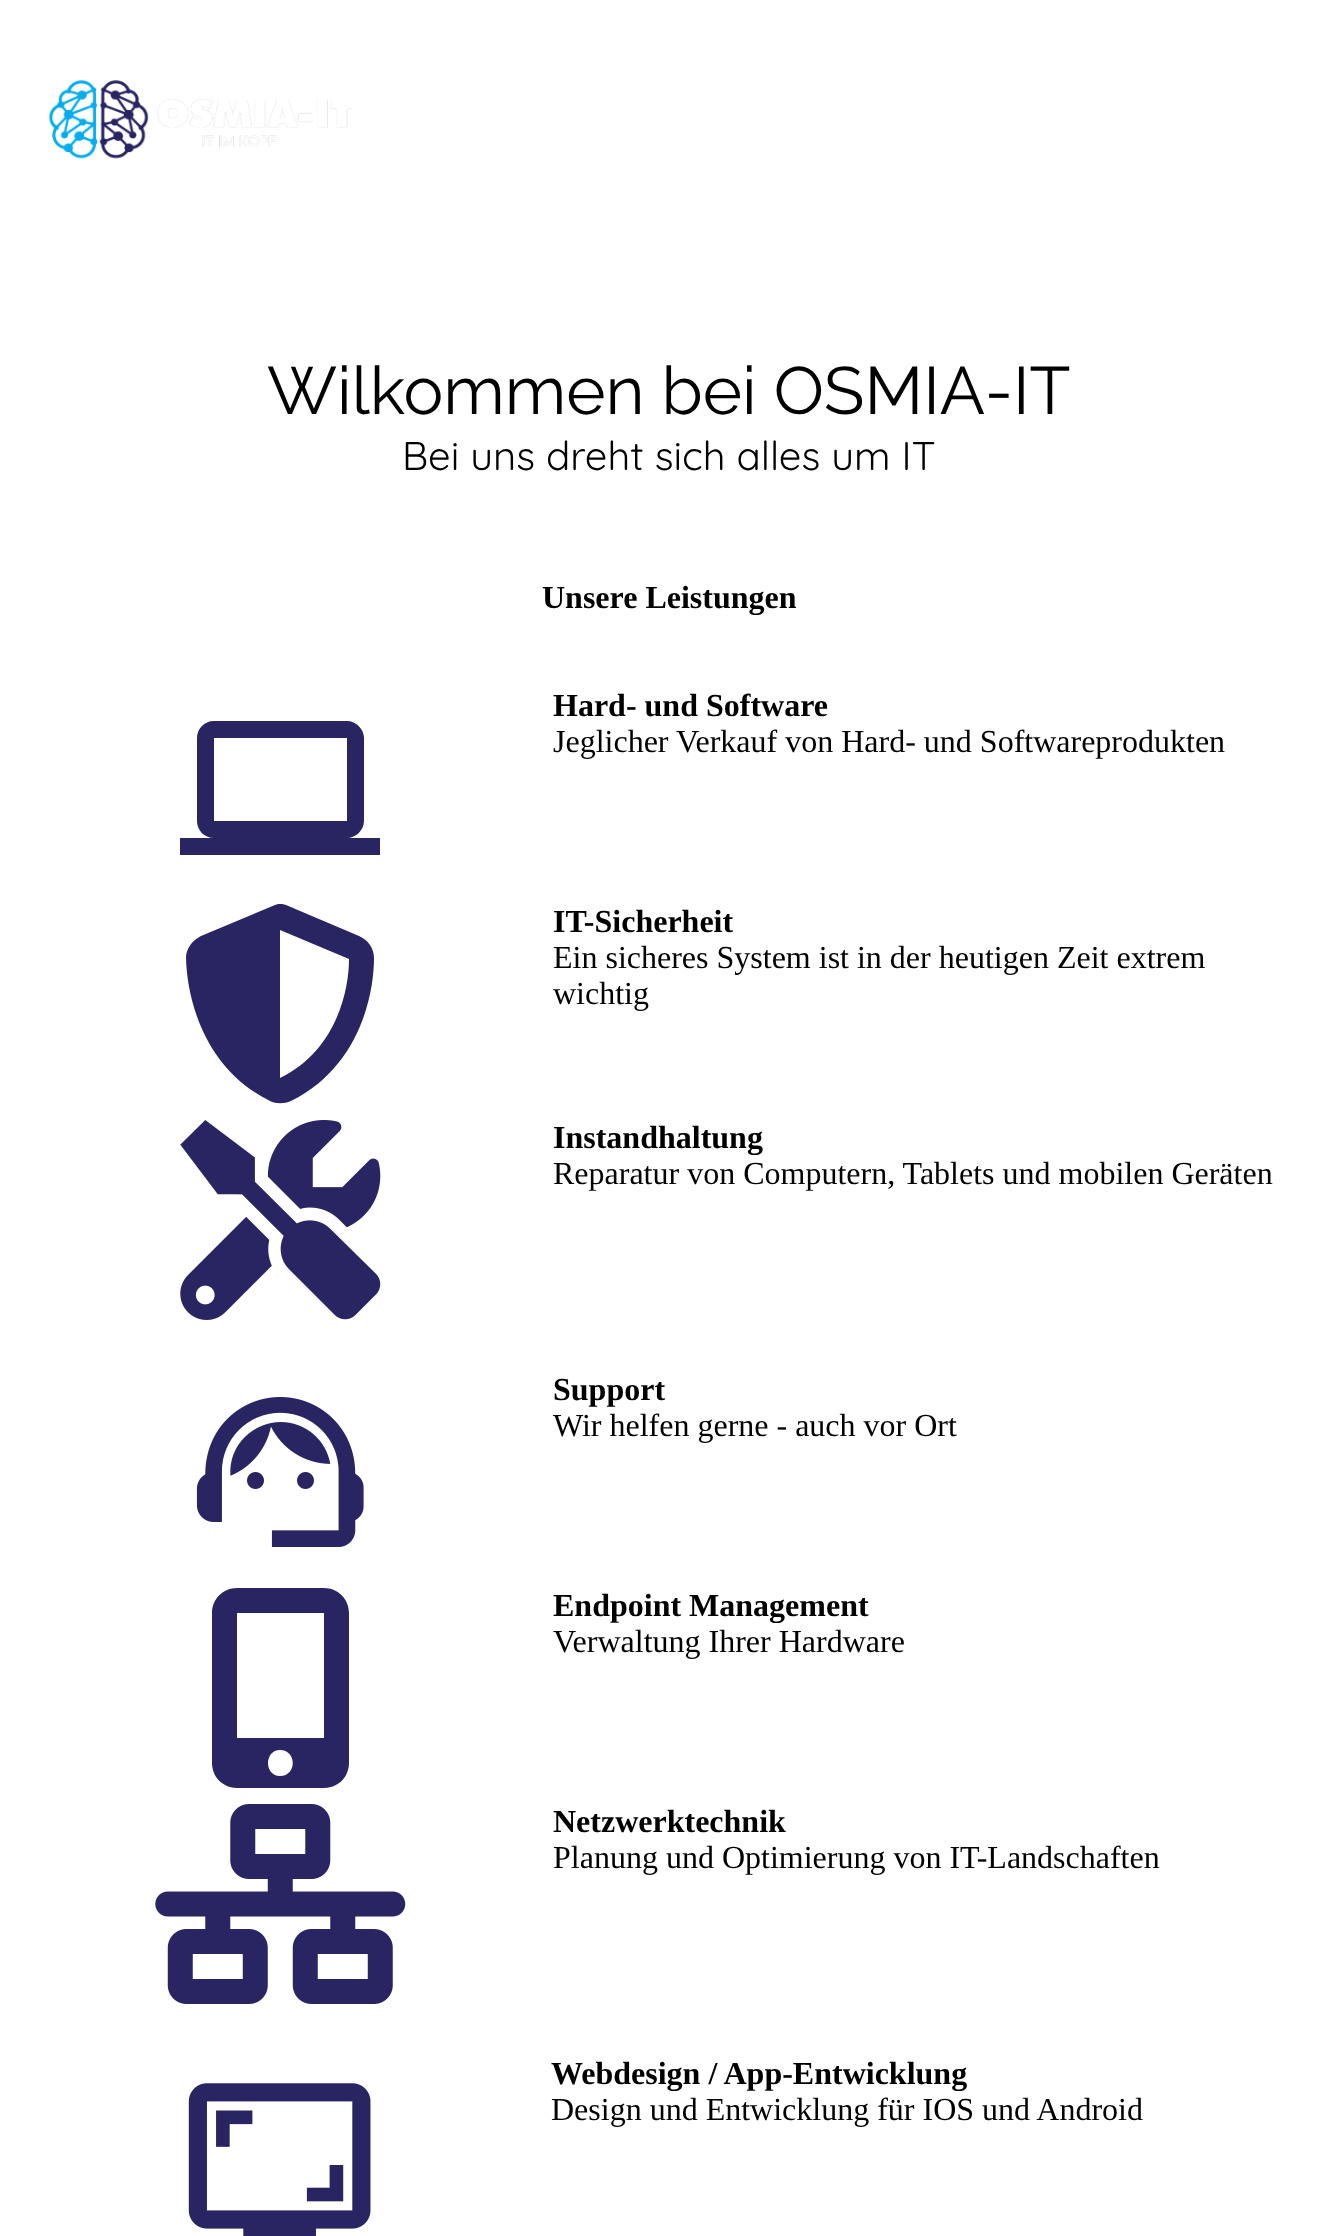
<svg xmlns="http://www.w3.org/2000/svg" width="1337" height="2236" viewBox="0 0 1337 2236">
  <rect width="100%" height="100%" fill="#ffffff"/>
  <image x="48" y="80" width="305" height="79" href="img1.png"/>
  <text x="267" y="414" font-family="Raleway" font-size="66.9" fill="#000000">Wilkommen bei OSMIA-IT</text>
  <text x="402" y="470" font-family="Quicksand" font-size="40.1" fill="#000000">Bei uns dreht sich alles um IT</text>
  <text x="542" y="608" font-family="Liberation Serif" font-size="32" font-weight="bold" fill="#000000">Unsere Leistungen</text>
  <text x="553" y="716" font-family="Liberation Serif" font-size="32" font-weight="bold" fill="#000000">Hard- und Software</text>
  <path d="M347 838C356 838 364 830 364 821V738C364 729 356 721 347 721H214C204 721 197 729 197 738V821C197 830 204 838 214 838H180V855H380V838ZM214 738H347V821H214Z" fill="#292563"/>
  <text x="553" y="752" font-family="Liberation Serif" font-size="32" fill="#000000">Jeglicher Verkauf von Hard- und Softwareprodukten</text>
  <path d="M280 904C282 904 284 904 286 905L359 936C368 940 374 948 374 958C374 997 358 1068 291 1101C284 1104 276 1104 270 1101C203 1068 187 997 186 958C186 948 193 940 201 936L275 905C277 904 278 904 280 904ZM280 1078C334 1052 349 994 349 959L280 930Z" fill="#292563"/>
  <text x="553" y="932" font-family="Liberation Serif" font-size="32" font-weight="bold" fill="#000000">IT-Sicherheit</text>
  <text x="553" y="968" font-family="Liberation Serif" font-size="32" fill="#000000">Ein sicheres System ist in der heutigen Zeit extrem</text>
  <text x="553" y="1004" font-family="Liberation Serif" font-size="32" fill="#000000">wichtig</text>
  <image x="180" y="1120" width="201" height="200" href="img2.png"/>
  <text x="553" y="1148" font-family="Liberation Serif" font-size="32" font-weight="bold" fill="#000000">Instandhaltung</text>
  <text x="553" y="1184" font-family="Liberation Serif" font-size="32" fill="#000000">Reparatur von Computern, Tablets und mobilen Geräten</text>
  <text x="553" y="1400" font-family="Liberation Serif" font-size="32" font-weight="bold" fill="#000000">Support</text>
  <image x="196" y="1397" width="168" height="150" href="img3.png"/>
  <text x="553" y="1436" font-family="Liberation Serif" font-size="32" fill="#000000">Wir helfen gerne - auch vor Ort</text>
  <path d="M324 1588H237C223 1588 212 1599 212 1613V1763C212 1777 223 1788 237 1788H324C338 1788 349 1777 349 1763V1613C349 1599 338 1588 324 1588ZM280 1776C264 1776 264 1750 280 1750C297 1750 297 1776 280 1776ZM324 1613V1738H237V1613Z" fill="#292563"/>
  <text x="553" y="1616" font-family="Liberation Serif" font-size="32" font-weight="bold" fill="#000000">Endpoint Management</text>
  <text x="553" y="1652" font-family="Liberation Serif" font-size="32" fill="#000000">Verwaltung Ihrer Hardware</text>
  <image x="155" y="1804" width="251" height="200" href="img4.png"/>
  <text x="553" y="1832" font-family="Liberation Serif" font-size="32" font-weight="bold" fill="#000000">Netzwerktechnik</text>
  <text x="553" y="1868" font-family="Liberation Serif" font-size="32" fill="#000000">Planung und Optimierung von IT-Landschaften</text>
  <text x="551" y="2084" font-family="Liberation Serif" font-size="32" font-weight="bold" fill="#000000">Webdesign / App-Entwicklung</text>
  <image x="188" y="2083" width="183" height="153" href="img5.png"/>
  <text x="551" y="2120" font-family="Liberation Serif" font-size="32" fill="#000000">Design und Entwicklung für IOS und Android</text>
</svg>
